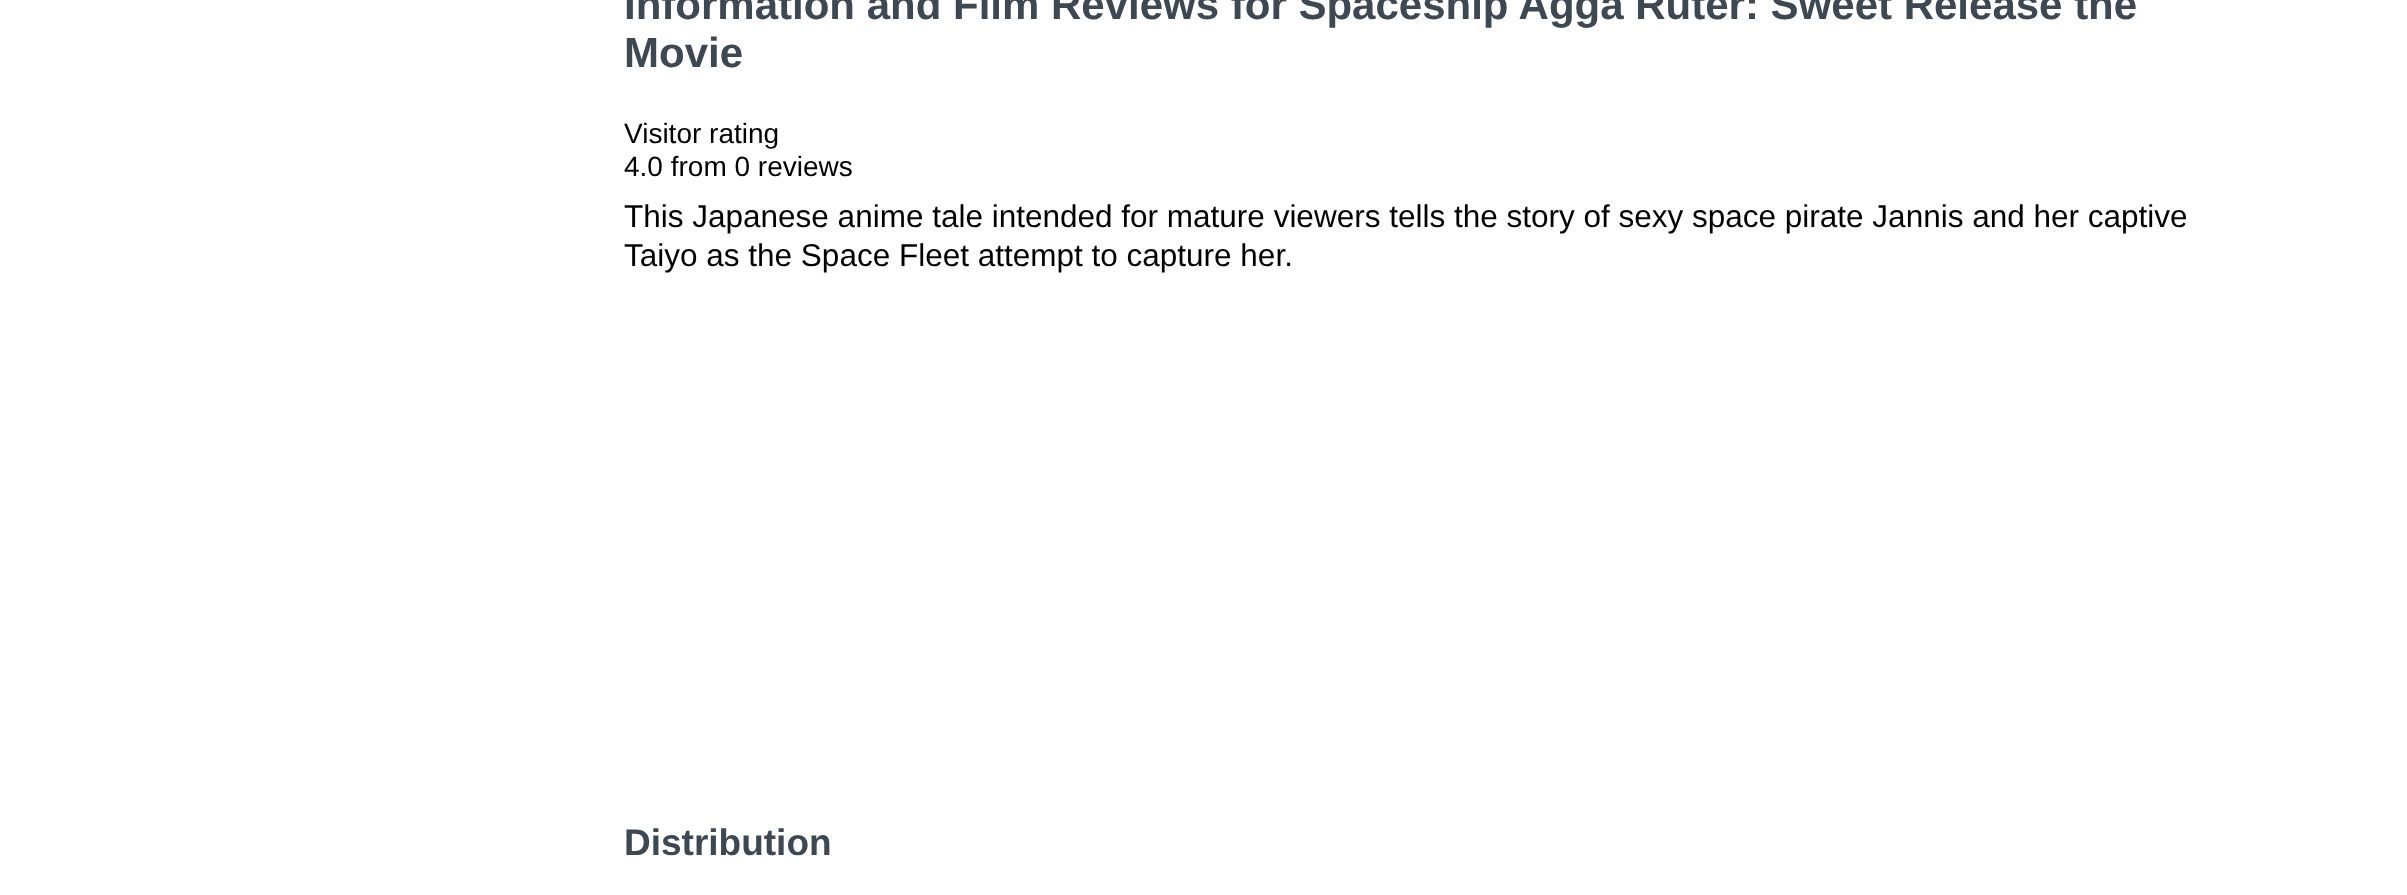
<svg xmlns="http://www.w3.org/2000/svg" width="2407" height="895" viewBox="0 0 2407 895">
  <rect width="100%" height="100%" fill="#ffffff"/>
  <text x="624" y="19" font-family="Liberation Sans" font-size="42" font-weight="bold" fill="#3d4852">Information and Film Reviews for Spaceship Agga Ruter: Sweet Release the</text>
  <text x="624" y="67" font-family="Liberation Sans" font-size="42" font-weight="bold" fill="#3d4852">Movie</text>
  <text x="624" y="143" font-family="Liberation Sans" font-size="28" fill="#000000">Visitor rating</text>
  <text x="624" y="176" font-family="Liberation Sans" font-size="28" fill="#000000">4.0 from 0 reviews</text>
  <text x="624" y="227" font-family="Liberation Sans" font-size="31.5" fill="#000000">This Japanese anime tale intended for mature viewers tells the story of sexy space pirate Jannis and her captive</text>
  <text x="624" y="266" font-family="Liberation Sans" font-size="31.5" fill="#000000">Taiyo as the Space Fleet attempt to capture her.</text>
  <text x="624" y="855" font-family="Liberation Sans" font-size="37" font-weight="bold" fill="#3d4852">Distribution</text>
</svg>
